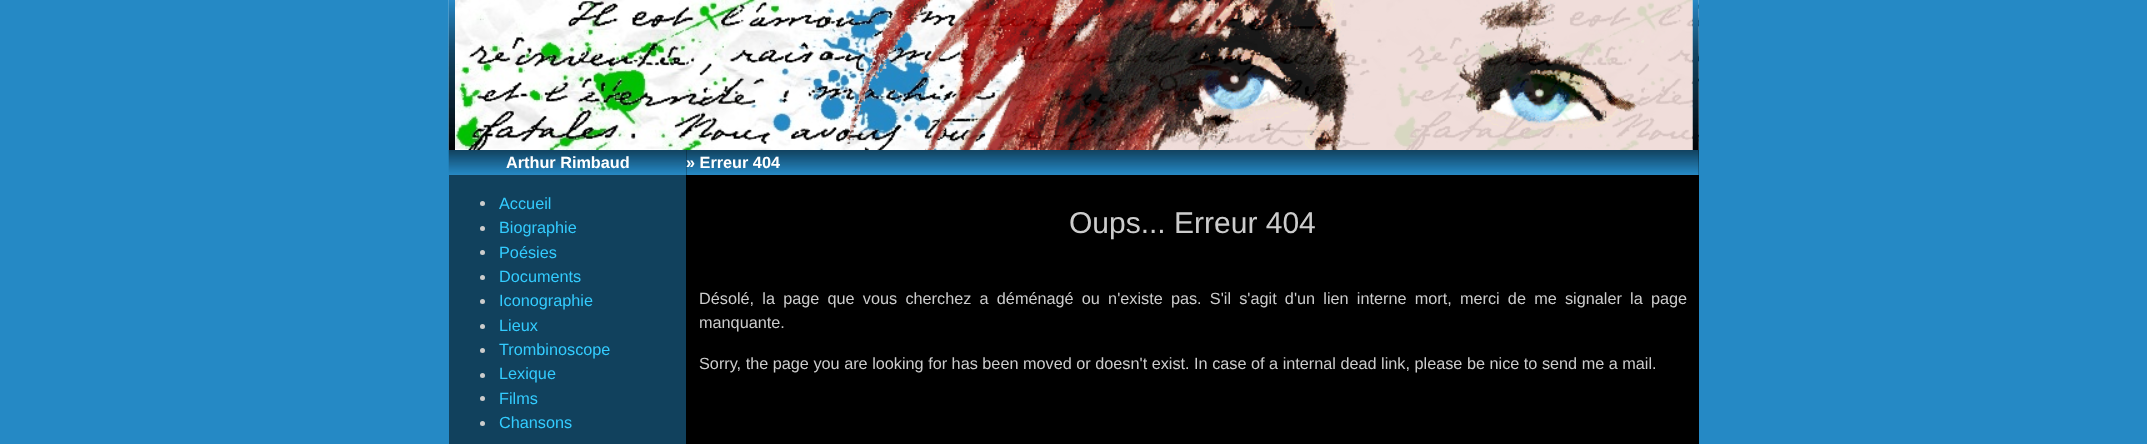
<svg xmlns="http://www.w3.org/2000/svg" width="2147" height="444" viewBox="0 0 2147 444">
  <rect width="100%" height="100%" fill="#2589c5"/>
  <image x="448" y="0" width="1251" height="150" href="img1.png"/>
  <image x="448" y="0" width="7" height="150" href="img2.png"/>
  <image x="1692" y="0" width="7" height="150" href="img4.png"/>
  <image x="846" y="0" width="847" height="150" href="img3.png"/>
  <rect x="449" y="175" width="237" height="269" fill="#11415d"/>
  <image x="448" y="150" width="238" height="25" href="img5.png"/>
  <text x="506" y="168" font-family="Liberation Sans" font-size="16.25" font-weight="bold" fill="#ffffff">Arthur Rimbaud</text>
  <circle cx="482.5" cy="203.5" r="2.5" fill="#cccccc"/>
  <text x="499" y="209" font-family="Liberation Sans" font-size="16.25" fill="#33ccff">Accueil</text>
  <circle cx="482.5" cy="228.5" r="2.5" fill="#cccccc"/>
  <text x="499" y="233" font-family="Liberation Sans" font-size="16.25" fill="#33ccff">Biographie</text>
  <circle cx="482.5" cy="252.5" r="2.5" fill="#cccccc"/>
  <text x="499" y="258" font-family="Liberation Sans" font-size="16.25" fill="#33ccff">Poésies</text>
  <circle cx="482.5" cy="277.5" r="2.5" fill="#cccccc"/>
  <text x="499" y="282" font-family="Liberation Sans" font-size="16.25" fill="#33ccff">Documents</text>
  <circle cx="482.5" cy="301.5" r="2.5" fill="#cccccc"/>
  <text x="499" y="306" font-family="Liberation Sans" font-size="16.25" fill="#33ccff">Iconographie</text>
  <circle cx="482.5" cy="326.5" r="2.5" fill="#cccccc"/>
  <text x="499" y="331" font-family="Liberation Sans" font-size="16.25" fill="#33ccff">Lieux</text>
  <circle cx="482.5" cy="350.5" r="2.5" fill="#cccccc"/>
  <text x="499" y="355" font-family="Liberation Sans" font-size="16.25" fill="#33ccff">Trombinoscope</text>
  <circle cx="482.5" cy="375.5" r="2.5" fill="#cccccc"/>
  <text x="499" y="379" font-family="Liberation Sans" font-size="16.25" fill="#33ccff">Lexique</text>
  <circle cx="482.5" cy="398.5" r="2.5" fill="#cccccc"/>
  <text x="499" y="404" font-family="Liberation Sans" font-size="16.25" fill="#33ccff">Films</text>
  <circle cx="482.5" cy="423.5" r="2.5" fill="#cccccc"/>
  <text x="499" y="428" font-family="Liberation Sans" font-size="16.25" fill="#33ccff">Chansons</text>
  <rect x="686" y="150" width="1013" height="294" fill="#000000"/>
  <image x="686" y="150" width="1013" height="25" href="img6.png"/>
  <text x="686" y="168" font-family="Liberation Sans" font-size="16.25" font-weight="bold" fill="#ffffff">» Erreur 404</text>
  <text x="1069" y="233" font-family="Liberation Sans" font-size="30" fill="#cccccc">Oups... Erreur 404</text>
  <text x="699" y="304" word-spacing="3.7" font-family="Liberation Sans" font-size="16.25" fill="#cccccc">Désolé, la page que vous cherchez a déménagé ou n'existe pas. S'il s'agit d'un lien interne mort, merci de me signaler la page</text>
  <text x="699" y="328" font-family="Liberation Sans" font-size="16.25" fill="#cccccc">manquante.</text>
  <text x="699" y="369" font-family="Liberation Sans" font-size="16.25" fill="#cccccc">Sorry, the page you are looking for has been moved or doesn't exist. In case of a internal dead link, please be nice to send me a mail.</text>
</svg>
